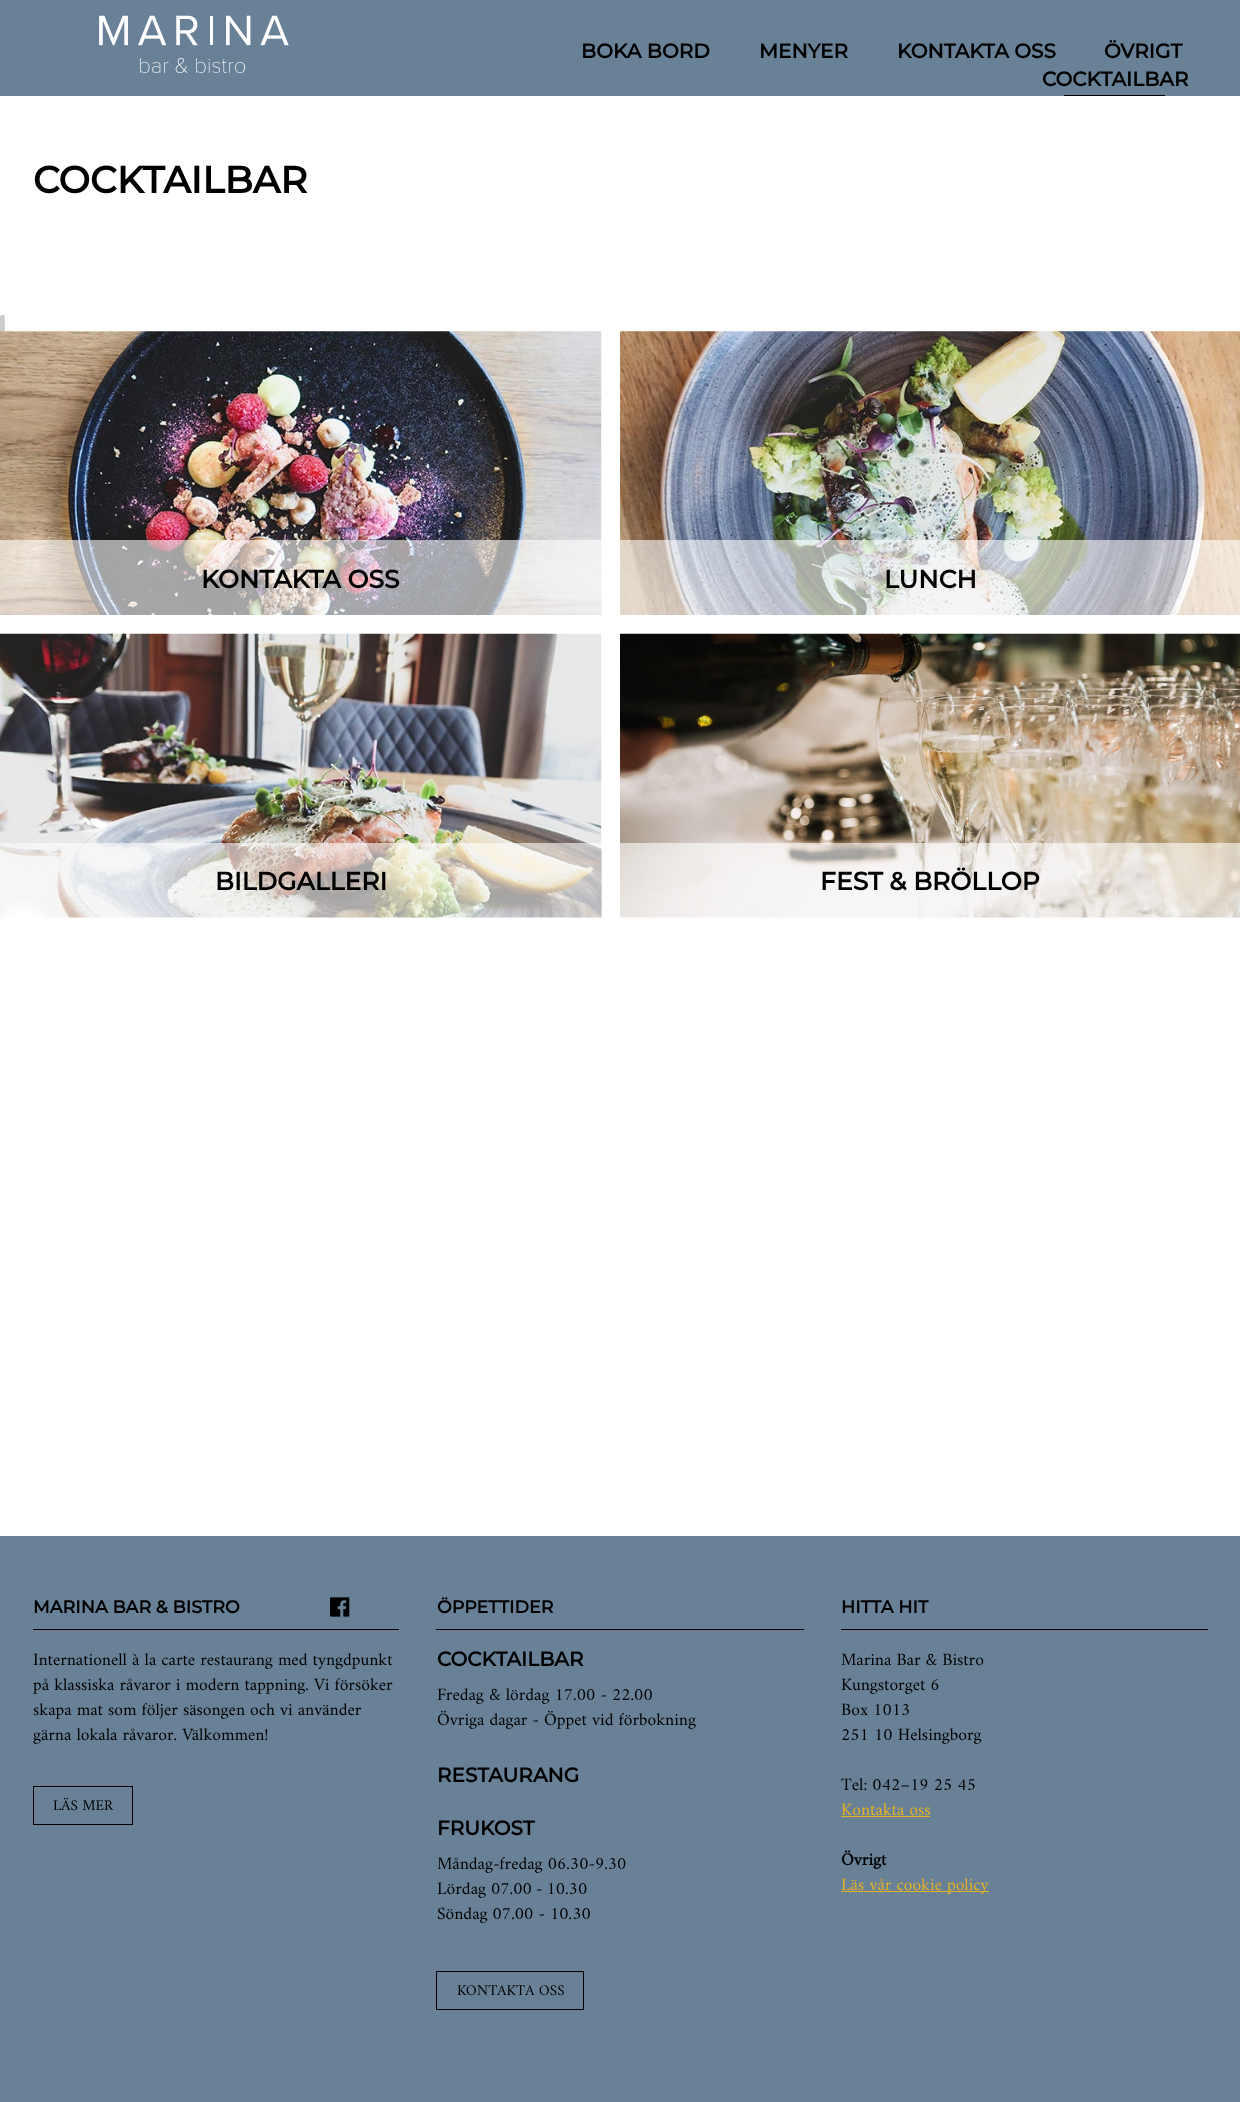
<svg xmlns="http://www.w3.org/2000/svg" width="1240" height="2102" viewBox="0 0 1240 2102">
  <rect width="100%" height="100%" fill="#ffffff"/>
  <rect x="0" y="0" width="1240" height="96" fill="#688197"/>
  <image x="99" y="15" width="190" height="59" href="img1.png"/>
  <text x="581" y="58" font-family="Montserrat" font-size="20" font-weight="bold" fill="#000000">BOKA BORD</text>
  <text x="759" y="58" font-family="Montserrat" font-size="20" font-weight="bold" fill="#000000">MENYER</text>
  <text x="897" y="58" font-family="Montserrat" font-size="20" font-weight="bold" fill="#000000">KONTAKTA OSS</text>
  <text x="1104" y="58" font-family="Montserrat" font-size="20" font-weight="bold" fill="#000000">ÖVRIGT</text>
  <text x="1042" y="86" font-family="Montserrat" font-size="20" font-weight="bold" fill="#000000">COCKTAILBAR</text>
  <rect x="1064" y="95" width="101" height="1" fill="#000000"/>
  <text x="33" y="193" font-family="Montserrat" font-size="37.5" font-weight="bold" fill="#000000">COCKTAILBAR</text>
  <image x="0" y="314" width="5" height="18" href="img2.png"/>
  <image x="0" y="331" width="602" height="284" href="img3.png"/>
  <rect x="0" y="540" width="601" height="75" fill="#ffffff" fill-opacity="0.6"/>
  <text x="201" y="588" font-family="Montserrat" font-size="25" font-weight="bold" fill="#000000">KONTAKTA OSS</text>
  <image x="620" y="331" width="620" height="284" href="img4.png"/>
  <rect x="620" y="540" width="620" height="75" fill="#ffffff" fill-opacity="0.6"/>
  <text x="884" y="588" font-family="Montserrat" font-size="25" font-weight="bold" fill="#000000">LUNCH</text>
  <image x="0" y="633" width="602" height="285" href="img5.png"/>
  <rect x="0" y="843" width="601" height="75" fill="#ffffff" fill-opacity="0.6"/>
  <text x="215" y="890" font-family="Montserrat" font-size="25" font-weight="bold" fill="#000000">BILDGALLERI</text>
  <image x="620" y="633" width="620" height="285" href="img6.png"/>
  <rect x="620" y="843" width="620" height="75" fill="#ffffff" fill-opacity="0.6"/>
  <text x="820" y="890" font-family="Montserrat" font-size="25" font-weight="bold" fill="#000000">FEST &amp; BRÖLLOP</text>
  <rect x="0" y="1536" width="1240" height="566" fill="#688197"/>
  <text x="33" y="1613" font-family="Montserrat" font-size="17.5" font-weight="bold" fill="#000000">MARINA BAR &amp; BISTRO</text>
  <image x="330" y="1597" width="20" height="20" href="img7.png"/>
  <rect x="33" y="1629" width="366" height="1" fill="#000000"/>
  <text x="33" y="1665" font-family="Amiri" font-size="17.5" fill="#000000">Internationell à la carte restaurang med tyngdpunkt</text>
  <text x="33" y="1690" font-family="Amiri" font-size="17.5" fill="#000000">på klassiska råvaror i modern tappning. Vi försöker</text>
  <text x="33" y="1715" font-family="Amiri" font-size="17.5" fill="#000000">skapa mat som följer säsongen och vi använder</text>
  <text x="33" y="1740" font-family="Amiri" font-size="17.5" fill="#000000">gärna lokala råvaror. Välkommen!</text>
  <rect x="33.5" y="1786.5" width="99" height="38" fill="none" stroke="#000000"/>
  <text x="53" y="1810" font-family="Amiri" font-size="15" fill="#000000">LÄS MER</text>
  <text x="437" y="1613" font-family="Montserrat" font-size="17.5" font-weight="bold" fill="#000000">ÖPPETTIDER</text>
  <rect x="436" y="1629" width="368" height="1" fill="#000000"/>
  <text x="437" y="1666" font-family="Montserrat" font-size="20" font-weight="bold" fill="#000000">COCKTAILBAR</text>
  <text x="437" y="1700" font-family="Amiri" font-size="17.5" fill="#000000">Fredag &amp; lördag 17.00 - 22.00</text>
  <text x="437" y="1725" font-family="Amiri" font-size="17.5" fill="#000000">Övriga dagar - Öppet vid förbokning</text>
  <text x="437" y="1782" font-family="Montserrat" font-size="20" font-weight="bold" fill="#000000">RESTAURANG</text>
  <text x="437" y="1835" font-family="Montserrat" font-size="20" font-weight="bold" fill="#000000">FRUKOST</text>
  <text x="437" y="1869" font-family="Amiri" font-size="17.5" fill="#000000">Måndag-fredag 06.30-9.30</text>
  <text x="437" y="1894" font-family="Amiri" font-size="17.5" fill="#000000">Lördag</text>
  <text x="491" y="1894" word-spacing="-1" font-family="Amiri" font-size="17.5" fill="#000000">07.00 - 10.30</text>
  <text x="437" y="1919" font-family="Amiri" font-size="17.5" fill="#000000">Söndag 07.00 - 10.30</text>
  <rect x="436.5" y="1971.5" width="147" height="38" fill="none" stroke="#000000"/>
  <text x="457" y="1995" font-family="Amiri" font-size="15" fill="#000000">KONTAKTA OSS</text>
  <text x="841" y="1613" font-family="Montserrat" font-size="17.5" font-weight="bold" fill="#000000">HITTA HIT</text>
  <rect x="841" y="1629" width="367" height="1" fill="#000000"/>
  <text x="841" y="1665" font-family="Amiri" font-size="17.5" fill="#000000">Marina Bar &amp; Bistro</text>
  <text x="841" y="1690" font-family="Amiri" font-size="17.5" fill="#000000">Kungstorget 6</text>
  <text x="841" y="1715" font-family="Amiri" font-size="17.5" fill="#000000">Box 1013</text>
  <text x="841" y="1740" font-family="Amiri" font-size="17.5" fill="#000000">251 10 Helsingborg</text>
  <text x="841" y="1790" font-family="Amiri" font-size="17.5" fill="#000000">Tel: 042–19 25 45</text>
  <text x="841" y="1815" font-family="Amiri" font-size="17.5" fill="#e6b122">Kontakta oss</text>
  <rect x="841" y="1816" width="89" height="1" fill="#e6b122"/>
  <text x="841" y="1865" font-family="Amiri" font-size="17.5" font-weight="bold" fill="#000000">Övrigt</text>
  <rect x="841" y="1891" width="148" height="1" fill="#e6b122"/>
  <text x="841" y="1890" font-family="Amiri" font-size="17.5" fill="#e6b122">Läs vår cookie policy</text>
</svg>
